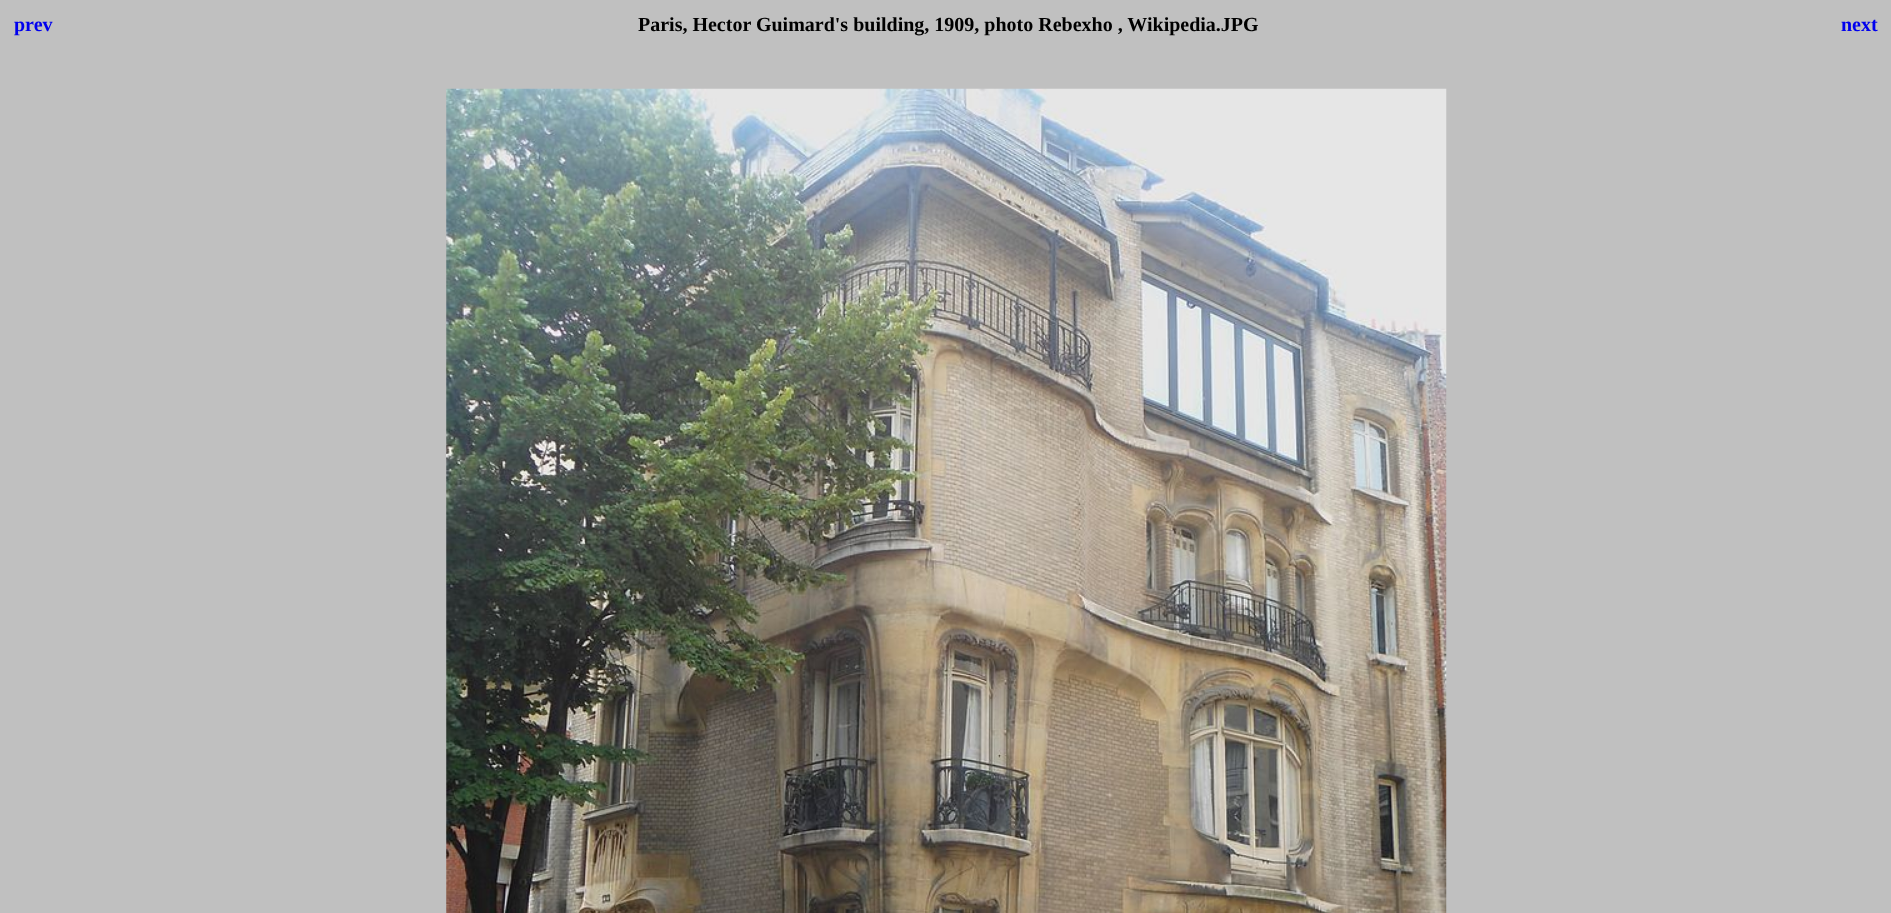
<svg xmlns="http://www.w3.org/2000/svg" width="1891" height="913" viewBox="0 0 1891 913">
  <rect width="100%" height="100%" fill="#c0c0c0"/>
  <text x="14" y="31" font-family="Liberation Serif" font-size="20" font-weight="bold" fill="#0000ee">prev</text>
  <text x="638" y="31" font-family="Liberation Serif" font-size="20" font-weight="bold" fill="#000000">Paris, Hector Guimard's building, 1909, photo Rebexho , Wikipedia.JPG</text>
  <text x="1841" y="31" font-family="Liberation Serif" font-size="20" font-weight="bold" fill="#0000ee">next</text>
  <image x="446" y="88" width="1001" height="825" href="img1.png"/>
</svg>
